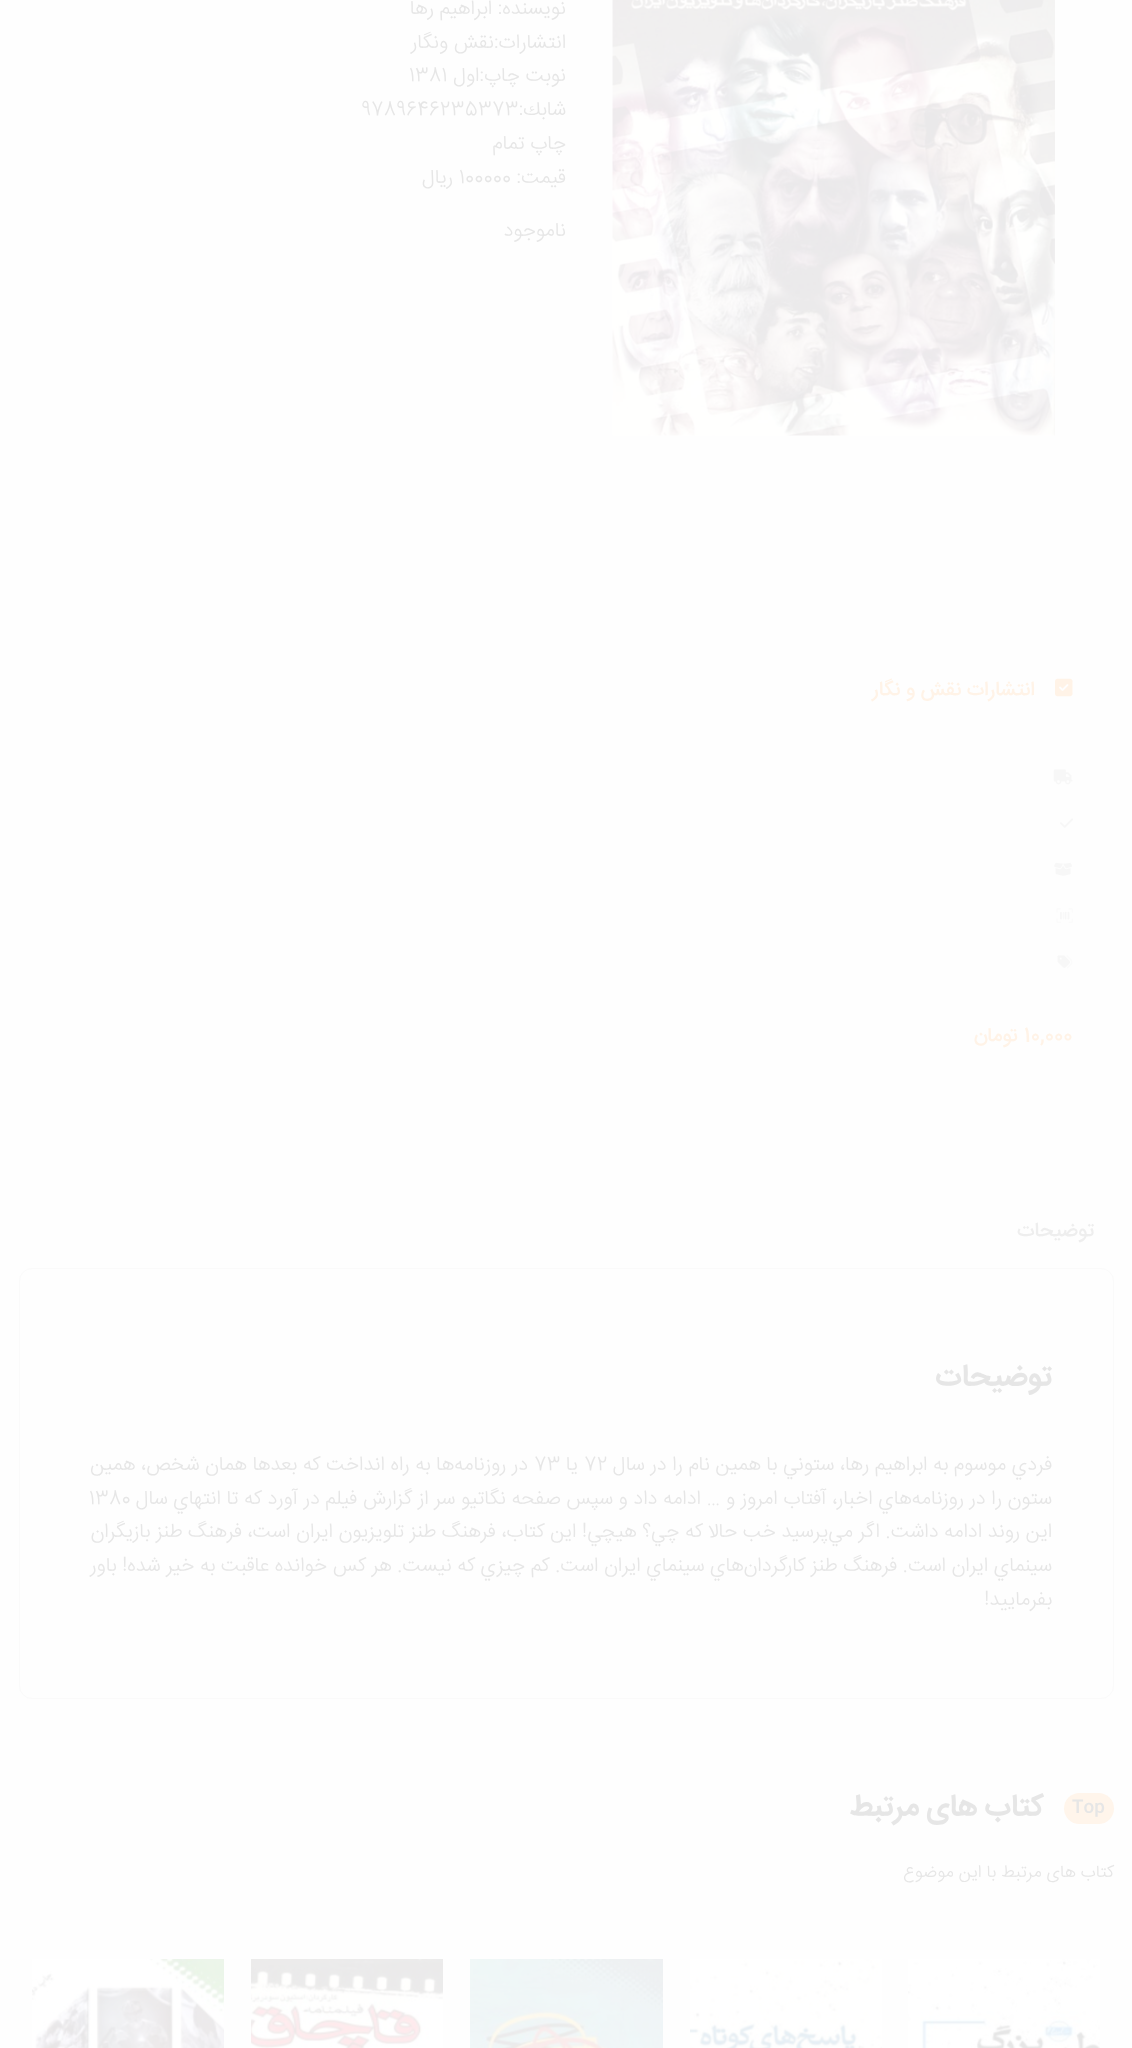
<svg xmlns="http://www.w3.org/2000/svg" width="1132" height="2048" viewBox="0 0 1132 2048">
  <rect width="100%" height="100%" fill="#fefefe"/>
  <image x="612" y="0" width="443" height="436" href="img1.png"/>
  <text x="566" y="14" font-family="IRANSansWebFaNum" font-size="20" font-weight="300" direction="rtl" fill="#e6e6e6">نويسنده: ابراهيم رها</text>
  <text x="566" y="48" font-family="IRANSansWebFaNum" font-size="20" font-weight="300" direction="rtl" fill="#e6e6e6">انتشارات:نقش ونگار</text>
  <text x="566" y="81" font-family="IRANSansWebFaNum" font-size="20" font-weight="300" direction="rtl" fill="#e6e6e6">نوبت چاپ:اول</text>
  <text x="409" y="81" font-family="IRANSansWebFaNum" font-size="20" font-weight="300" fill="#e6e6e6">1381</text>
  <text x="566" y="115" font-family="IRANSansWebFaNum" font-size="20" font-weight="300" direction="rtl" fill="#e6e6e6">شابك:</text>
  <text x="361" y="115" font-family="IRANSansWebFaNum" font-size="20" font-weight="300" fill="#e6e6e6">9789646235373</text>
  <text x="566" y="149" font-family="IRANSansWebFaNum" font-size="20" font-weight="300" direction="rtl" fill="#e6e6e6">چاپ تمام</text>
  <text x="566" y="183" font-family="IRANSansWebFaNum" font-size="20" font-weight="300" direction="rtl" fill="#e6e6e6">قیمت:</text>
  <text x="459" y="183" font-family="IRANSansWebFaNum" font-size="20" font-weight="300" fill="#e6e6e6">100000</text>
  <text x="453" y="183" font-family="IRANSansWebFaNum" font-size="20" font-weight="300" direction="rtl" fill="#e6e6e6">ریال</text>
  <text x="566" y="236" font-family="IRANSansWebFaNum" font-size="20" font-weight="300" direction="rtl" fill="#e6e6e6">ناموجود</text>
  <image x="1055" y="678" width="18" height="19" href="img2.png"/>
  <text x="1035" y="695" font-family="IRANSansWebFaNum" font-size="20" font-weight="500" direction="rtl" fill="#fff3e7">انتشارات نقش و نگار</text>
  <image x="1053" y="769" width="20" height="16" href="img3.png"/>
  <image x="1060" y="818" width="13" height="10" href="img4.png"/>
  <image x="1054" y="862" width="18" height="14" href="img5.png"/>
  <image x="1060" y="911" width="10" height="9" href="img7.png"/>
  <image x="1056" y="908" width="17" height="15" href="img6.png"/>
  <image x="1057" y="955" width="13" height="13" href="img8.png"/>
  <image x="1066" y="955" width="7" height="14" href="img9.png"/>
  <text x="1024" y="1041" font-family="IRANSansWebFaNum" font-size="20" font-weight="500" fill="#fff3e7">10,000</text>
  <text x="1018" y="1041" font-family="IRANSansWebFaNum" font-size="20" font-weight="500" direction="rtl" fill="#fff3e7">تومان</text>
  <text x="1094" y="1236" font-family="IRANSansWebFaNum" font-size="20" font-weight="500" direction="rtl" fill="#eeeeee">توضیحات</text>
  <rect x="19.5" y="1268.5" width="1094" height="430" rx="12.5" fill="none" stroke="#fafafa"/>
  <text x="1052" y="1385" font-family="IRANSansWebFaNum" font-size="30" font-weight="bold" direction="rtl" fill="#e6e6e6">توضیحات</text>
  <text x="1052" y="1470" font-family="IRANSansWebFaNum" font-size="20" font-weight="300" direction="rtl" fill="#e6e6e6">فردي موسوم به ابراهيم رها، ستوني با همين نام را در سال</text>
  <text x="584" y="1470" font-family="IRANSansWebFaNum" font-size="20" font-weight="300" fill="#e6e6e6">72</text>
  <text x="578" y="1470" font-family="IRANSansWebFaNum" font-size="20" font-weight="300" direction="rtl" fill="#e6e6e6">يا</text>
  <text x="534" y="1470" font-family="IRANSansWebFaNum" font-size="20" font-weight="300" fill="#e6e6e6">73</text>
  <text x="528" y="1470" font-family="IRANSansWebFaNum" font-size="20" font-weight="300" direction="rtl" fill="#e6e6e6">در روزنامه‌ها به راه انداخت كه بعدها همان شخص، همين</text>
  <text x="1052" y="1504" font-family="IRANSansWebFaNum" font-size="20" font-weight="300" direction="rtl" fill="#e6e6e6">ستون را در روزنامه‌هاي اخبار، آفتاب امروز و … ادامه داد و سپس صفحه نگاتيو سر از گزارش فيلم در آورد كه تا انتهاي سال</text>
  <text x="89" y="1504" font-family="IRANSansWebFaNum" font-size="20" font-weight="300" fill="#e6e6e6">1380</text>
  <text x="1052" y="1537" font-family="IRANSansWebFaNum" font-size="20" font-weight="300" direction="rtl" fill="#e6e6e6">اين روند ادامه داشت. اگر مي‌پرسيد خب حالا كه چي؟ هيچي! اين كتاب، فرهنگ طنز تلويزيون ايران است، فرهنگ طنز بازيگران</text>
  <text x="1052" y="1571" font-family="IRANSansWebFaNum" font-size="20" font-weight="300" direction="rtl" fill="#e6e6e6">سينماي ايران است. فرهنگ طنز كارگردان‌هاي سينماي ايران است. كم چيزي كه نيست. هر كس خوانده عاقبت به خير شده! باور</text>
  <text x="1052" y="1605" font-family="IRANSansWebFaNum" font-size="20" font-weight="300" direction="rtl" fill="#e6e6e6">بفرماييد!</text>
  <rect x="1064" y="1793" width="50" height="31" rx="15.5" fill="#fff5eb"/>
  <text x="1072" y="1812" font-family="IRANSansWebFaNum" font-size="17.5" font-weight="500" fill="#e6e6e6">Top</text>
  <text x="1044" y="1815" font-family="IRANSansWebFaNum" font-size="30" font-weight="bold" direction="rtl" fill="#e6e6e6">کتاب های</text>
  <text x="919" y="1815" font-family="IRANSansWebFaNum" font-size="30" font-weight="bold" direction="rtl" fill="#e6e6e6">مرتبط</text>
  <text x="1114" y="1877" font-family="IRANSansWebFaNum" font-size="17.5" font-weight="300" direction="rtl" fill="#e6e6e6">کتاب های مرتبط با این موضوع</text>
  <image x="908" y="1959" width="192" height="89" href="img10.png"/>
  <image x="690" y="1959" width="192" height="89" href="img11.png"/>
  <image x="470" y="1959" width="193" height="89" href="img12.png"/>
  <image x="251" y="1959" width="192" height="89" href="img13.png"/>
  <image x="32" y="1959" width="192" height="89" href="img14.png"/>
</svg>
